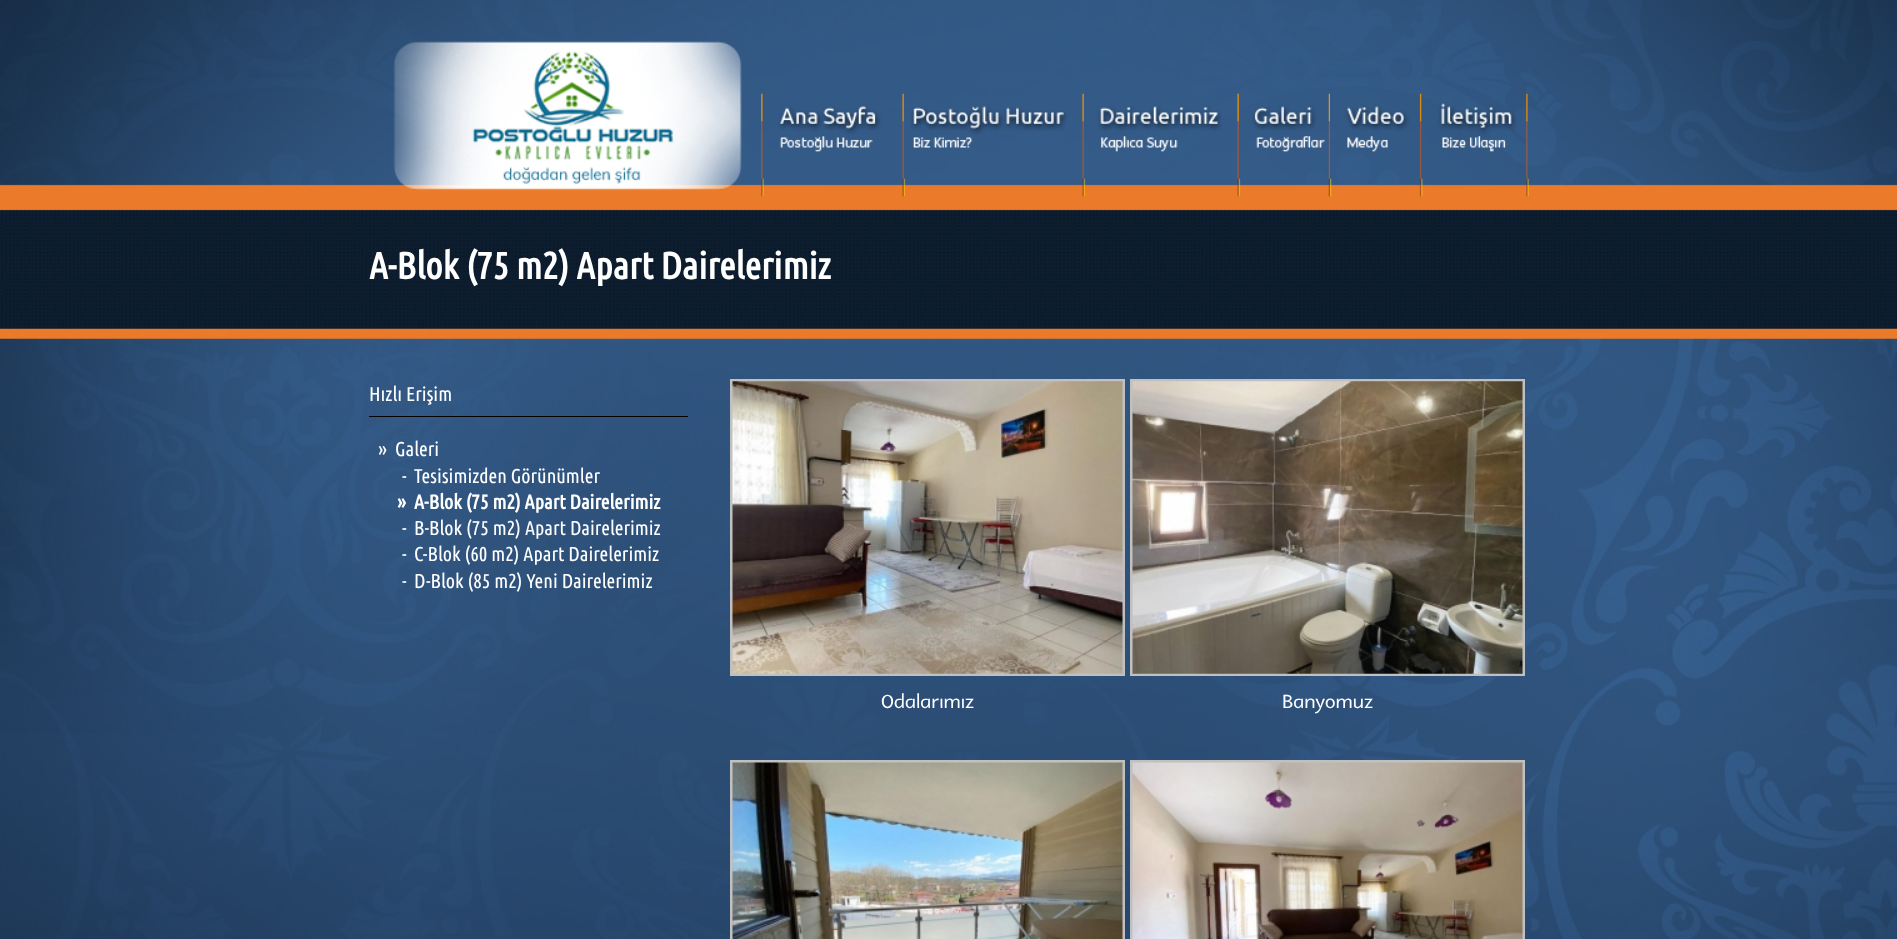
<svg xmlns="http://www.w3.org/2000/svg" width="1897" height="939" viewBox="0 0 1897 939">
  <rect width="100%" height="100%" fill="#ffffff"/>
  <image x="0" y="0" width="1897" height="939" href="img1.png"/>
  <image x="393" y="41" width="349" height="150" href="img2.png"/>
  <image x="761" y="93" width="120" height="104" href="img3.png"/>
  <image x="902" y="93" width="165" height="104" href="img4.png"/>
  <image x="1082" y="93" width="140" height="104" href="img5.png"/>
  <image x="1237" y="93" width="93" height="104" href="img6.png"/>
  <image x="1330" y="93" width="92" height="104" href="img7.png"/>
  <image x="1421" y="93" width="108" height="104" href="img8.png"/>
  <text x="369" y="279" font-family="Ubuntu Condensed" font-size="37.5" font-weight="bold" fill="#ffffff">A-Blok (75 m2) Apart Dairelerimiz</text>
  <text x="369" y="401" font-family="Ubuntu Condensed" font-size="20" fill="#ffffff">Hızlı Erişim</text>
  <rect x="369" y="416" width="319" height="1" fill="#000000"/>
  <text x="378" y="456" font-family="Ubuntu Condensed" font-size="20" fill="#ffffff">»</text>
  <text x="395" y="456" font-family="Ubuntu Condensed" font-size="20" fill="#ffffff">Galeri</text>
  <text x="402" y="483" font-family="Ubuntu Condensed" font-size="20" fill="#ffffff">-</text>
  <text x="414" y="483" font-family="Ubuntu Condensed" font-size="20" fill="#ffffff">Tesisimizden Görünümler</text>
  <text x="397" y="509" font-family="Ubuntu Condensed" font-size="20" font-weight="bold" fill="#ffffff">»</text>
  <text x="414" y="509" font-family="Ubuntu Condensed" font-size="20" font-weight="bold" fill="#ffffff">A-Blok (75 m2) Apart Dairelerimiz</text>
  <text x="402" y="535" font-family="Ubuntu Condensed" font-size="20" fill="#ffffff">-</text>
  <text x="414" y="535" font-family="Ubuntu Condensed" font-size="20" fill="#ffffff">B-Blok (75 m2) Apart Dairelerimiz</text>
  <text x="402" y="561" font-family="Ubuntu Condensed" font-size="20" fill="#ffffff">-</text>
  <text x="414" y="561" font-family="Ubuntu Condensed" font-size="20" fill="#ffffff">C-Blok (60 m2) Apart Dairelerimiz</text>
  <text x="402" y="588" font-family="Ubuntu Condensed" font-size="20" fill="#ffffff">-</text>
  <text x="414" y="588" font-family="Ubuntu Condensed" font-size="20" fill="#ffffff">D-Blok (85 m2) Yeni Dairelerimiz</text>
  <rect x="731.5" y="380.5" width="392" height="294" fill="none" stroke="#c0c0c0" stroke-width="3"/>
  <image x="732" y="381" width="391" height="293" href="img9.png"/>
  <text x="881" y="708" font-family="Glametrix" font-size="27.5" font-weight="500" fill="#ffffff">Odalarımız</text>
  <rect x="1131.5" y="380.5" width="392" height="294" fill="none" stroke="#c0c0c0" stroke-width="3"/>
  <image x="1132" y="381" width="391" height="293" href="img10.png"/>
  <text x="1282" y="708" font-family="Glametrix" font-size="27.5" font-weight="500" fill="#ffffff">Banyomuz</text>
  <rect x="731.5" y="761.5" width="392" height="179" fill="none" stroke="#c0c0c0" stroke-width="3"/>
  <image x="732" y="762" width="391" height="177" href="img11.png"/>
  <rect x="1131.5" y="761.5" width="392" height="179" fill="none" stroke="#c0c0c0" stroke-width="3"/>
  <image x="1132" y="762" width="391" height="177" href="img12.png"/>
</svg>
